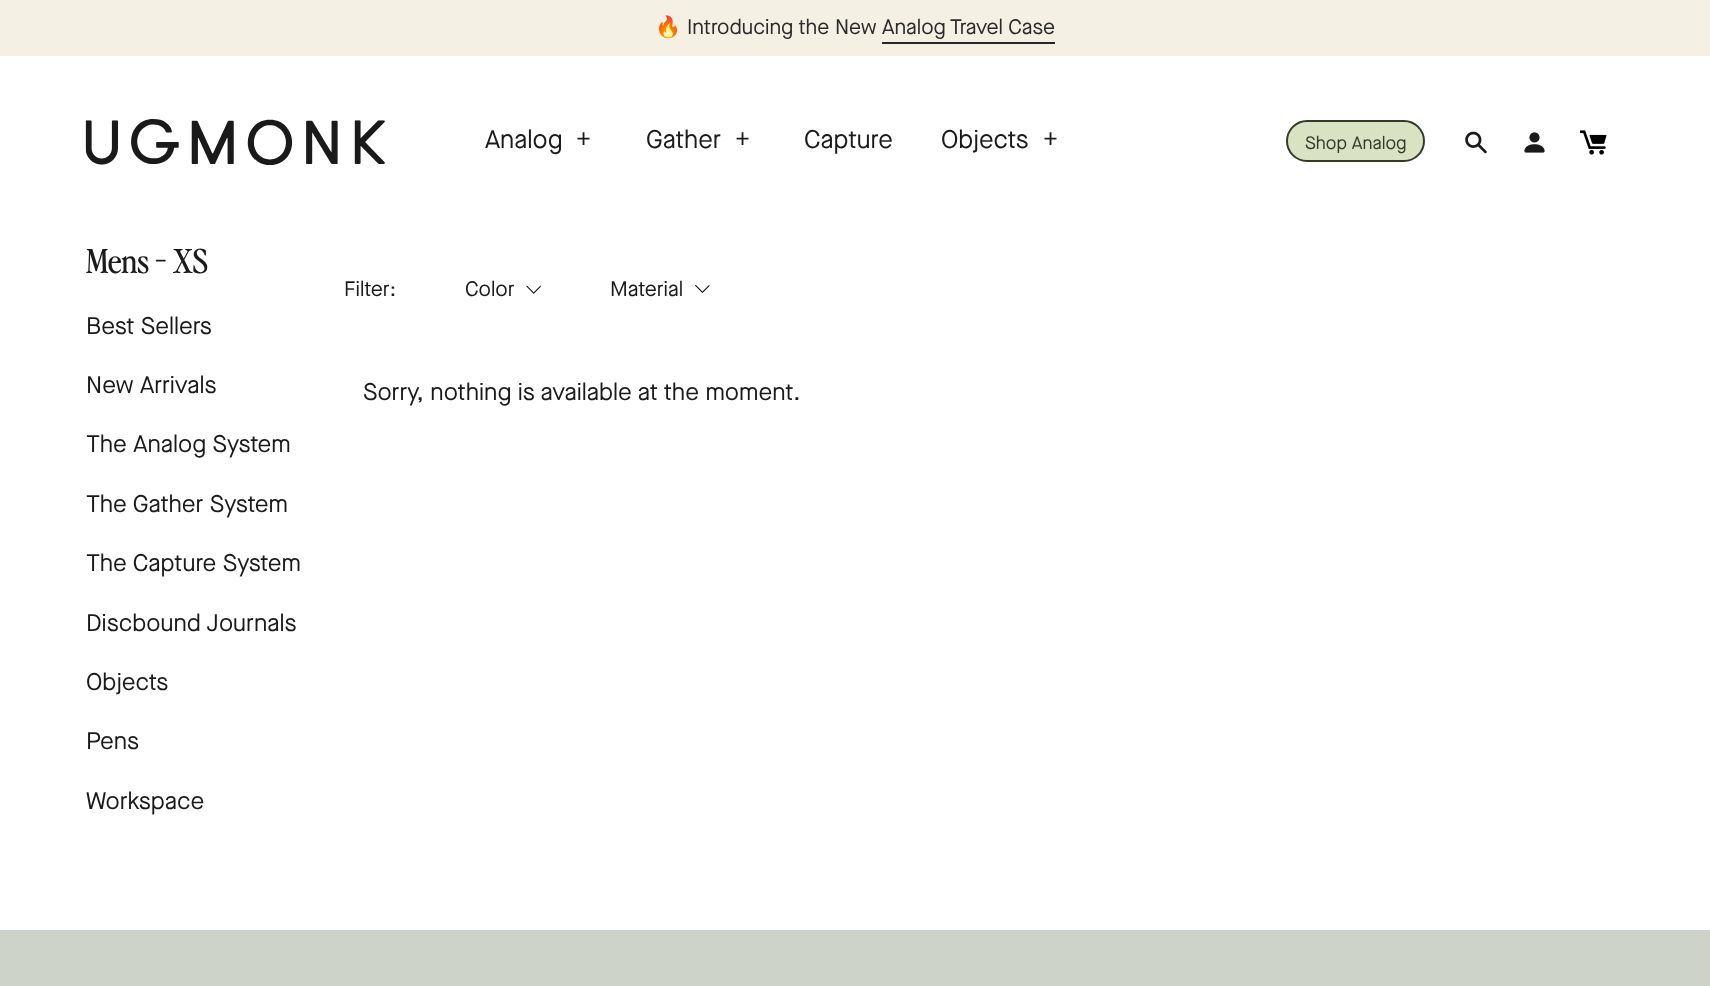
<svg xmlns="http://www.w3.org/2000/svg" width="1710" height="986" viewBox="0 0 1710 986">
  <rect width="100%" height="100%" fill="#ffffff"/>
  <rect x="0" y="0" width="1710" height="56" fill="#f4f0e3"/>
  <text x="655" y="34" font-family="Noto Color Emoji" font-size="21" fill="#2a2a2a">🔥</text>
  <text x="687" y="34" font-family="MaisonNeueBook" font-size="21" fill="#2a2a2a">Introducing the New</text>
  <text x="882" y="34" font-family="MaisonNeueBook" font-size="21" fill="#2a2a2a">Analog Travel Case</text>
  <rect x="882" y="42" width="173" height="2" fill="#262626"/>
  <image x="85" y="119" width="300" height="46" href="img1.png"/>
  <text x="485" y="148" font-family="MaisonNeueBook" font-size="25.5" fill="#1a1a1a">Analog</text>
  <text x="576" y="148" font-family="MaisonNeueBook" font-size="25.5" fill="#1a1a1a">+</text>
  <text x="646" y="148" font-family="MaisonNeueBook" font-size="25.5" fill="#1a1a1a">Gather</text>
  <text x="735" y="148" font-family="MaisonNeueBook" font-size="25.5" fill="#1a1a1a">+</text>
  <text x="804" y="148" font-family="MaisonNeueBook" font-size="25.5" fill="#1a1a1a">Capture</text>
  <text x="941" y="148" font-family="MaisonNeueBook" font-size="25.5" fill="#1a1a1a">Objects</text>
  <text x="1043" y="148" font-family="MaisonNeueBook" font-size="25.5" fill="#1a1a1a">+</text>
  <rect x="1287" y="121" width="137" height="40" rx="20" fill="#d9e2c3" stroke="#333b28" stroke-width="2"/>
  <text x="1305" y="149" font-family="MaisonNeueBook" font-size="18" fill="#333b28">Shop Analog</text>
  <image x="1465" y="131" width="22" height="23" href="img2.png"/>
  <image x="1524" y="132" width="21" height="21" href="img3.png"/>
  <image x="1580" y="130" width="27" height="25" href="img4.png"/>
  <text x="86" y="273" font-family="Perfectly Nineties" font-size="33" fill="#1a1a1a">Mens - XS</text>
  <text x="86" y="334" font-family="MaisonNeueBook" font-size="24" fill="#1a1a1a">Best Sellers</text>
  <text x="86" y="393" font-family="MaisonNeueBook" font-size="24" fill="#1a1a1a">New Arrivals</text>
  <text x="86" y="452" font-family="MaisonNeueBook" font-size="24" fill="#1a1a1a">The Analog System</text>
  <text x="86" y="512" font-family="MaisonNeueBook" font-size="24" fill="#1a1a1a">The Gather System</text>
  <text x="86" y="571" font-family="MaisonNeueBook" font-size="24" fill="#1a1a1a">The Capture System</text>
  <text x="86" y="631" font-family="MaisonNeueBook" font-size="24" fill="#1a1a1a">Discbound Journals</text>
  <text x="86" y="690" font-family="MaisonNeueBook" font-size="24" fill="#1a1a1a">Objects</text>
  <text x="86" y="749" font-family="MaisonNeueBook" font-size="24" fill="#1a1a1a">Pens</text>
  <text x="86" y="809" font-family="MaisonNeueBook" font-size="24" fill="#1a1a1a">Workspace</text>
  <text x="344" y="296" font-family="MaisonNeueBook" font-size="21" fill="#1a1a1a">Filter:</text>
  <text x="465" y="296" font-family="MaisonNeueBook" font-size="21" fill="#1a1a1a">Color</text>
  <image x="526" y="285" width="15" height="9" href="img5.png"/>
  <text x="610" y="296" font-family="MaisonNeueBook" font-size="21" fill="#1a1a1a">Material</text>
  <image x="695" y="284" width="15" height="9" href="img6.png"/>
  <text x="363" y="400" font-family="MaisonNeueBook" font-size="24" fill="#1a1a1a">Sorry, nothing is available at the moment.</text>
  <rect x="0" y="930" width="1710" height="56" fill="#ced3ca"/>
</svg>
